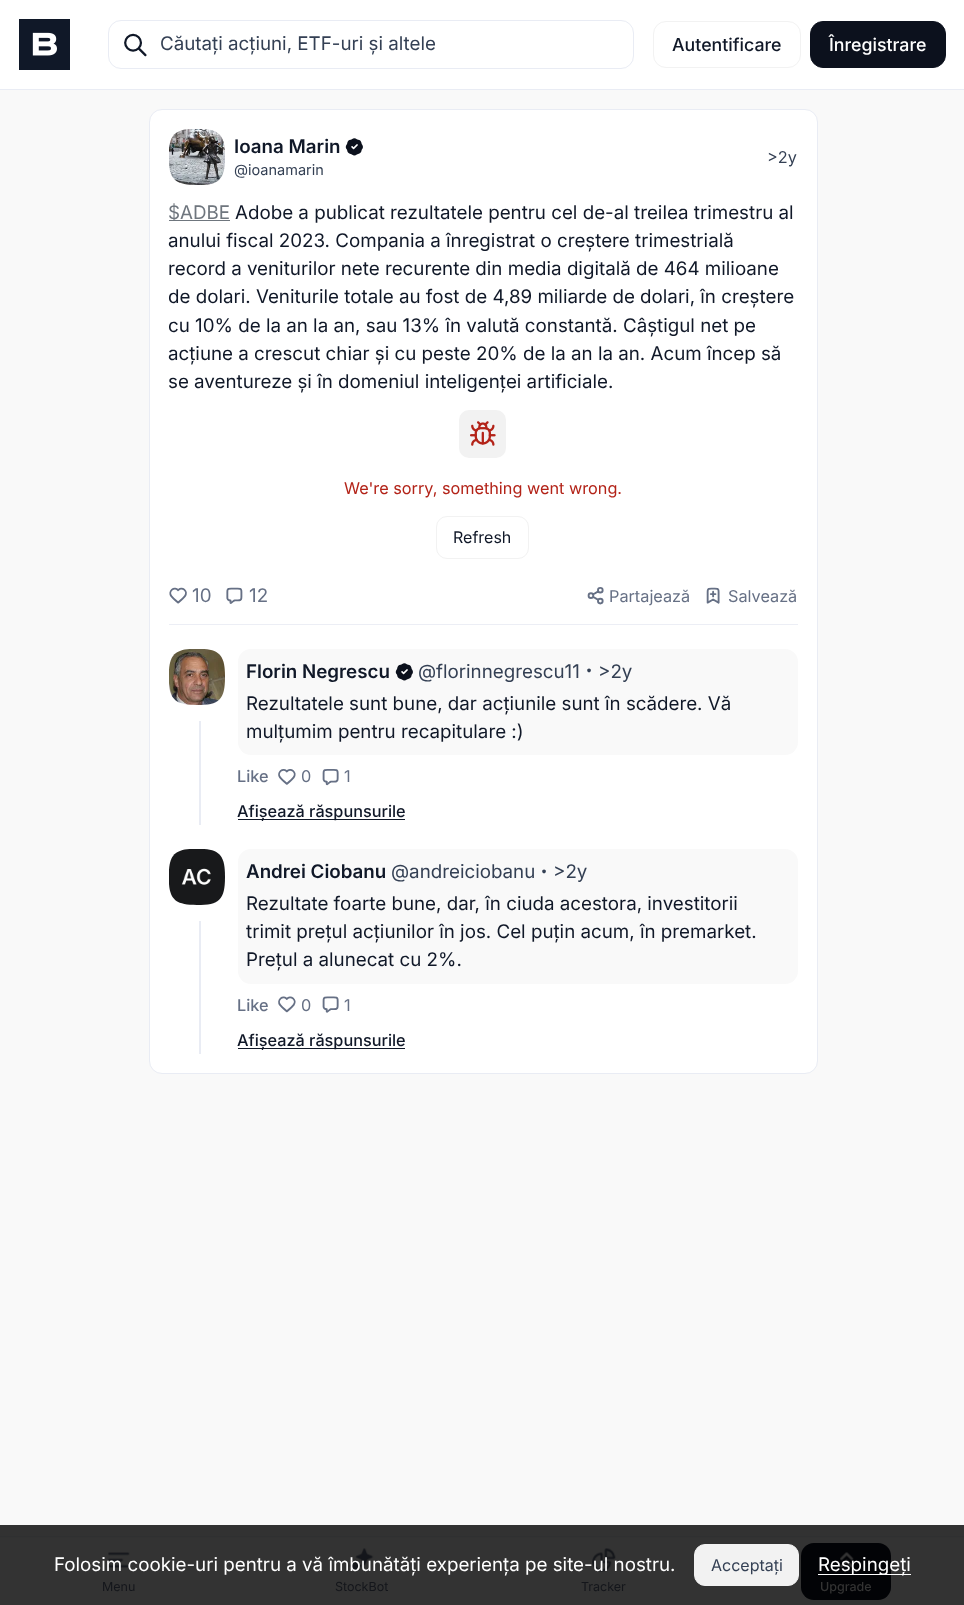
<svg xmlns="http://www.w3.org/2000/svg" width="964" height="1605" viewBox="0 0 964 1605">
  <rect width="100%" height="100%" fill="#f9f9f9"/>
  <rect x="0" y="1525" width="964" height="13" fill="#323232"/>
  <rect x="0" y="0" width="964" height="89" fill="#ffffff"/>
  <rect x="0" y="89" width="964" height="1" fill="#e9ecf4"/>
  <image x="19" y="19" width="51" height="51" href="img1.png"/>
  <rect x="108.5" y="20.5" width="525" height="48" rx="12.5" fill="none" stroke="#e9ecf4"/>
  <image x="124" y="33" width="23" height="24" href="img2.png"/>
  <text x="160" y="50" font-family="Inter" font-size="18.75" fill="#344054">Căutați acțiuni, ETF-uri și altele</text>
  <rect x="653.5" y="21.5" width="147" height="46" rx="12.5" fill="none" stroke="#f2f2f2"/>
  <text x="672" y="51" font-family="Inter" font-size="17.75" font-weight="500" fill="#101828">Autentificare</text>
  <rect x="810.5" y="21.5" width="135" height="46" rx="12.5" fill="#0c111d" stroke="#0c111d"/>
  <text x="829" y="51" font-family="Inter" font-size="17.75" font-weight="500" fill="#ffffff">Înregistrare</text>
  <rect x="149.5" y="109.5" width="668" height="964" rx="12.5" fill="#ffffff" stroke="#e9ecf4"/>
  <image x="169" y="129" width="56" height="56" href="img3.png"/>
  <text x="234" y="153" font-family="Inter" font-size="18.75" font-weight="600" fill="#101828">Ioana Marin</text>
  <image x="345" y="138" width="18" height="18" href="img4.png"/>
  <text x="234" y="175" font-family="Inter" font-size="14.5" fill="#344054">@ioanamarin</text>
  <text x="767" y="163" font-family="Inter" font-size="16.25" fill="#344054">&gt;2y</text>
  <rect x="169" y="220" width="61" height="1" fill="#6f767e"/>
  <text x="168" y="219" font-family="Inter" font-size="18.75" fill="#6f767e">$ADBE</text>
  <text x="235" y="219" font-family="Inter" font-size="18.75" fill="#101828">Adobe a publicat rezultatele pentru cel de-al treilea trimestru al</text>
  <text x="168" y="247" font-family="Inter" font-size="18.75" fill="#101828">anului fiscal 2023. Compania a înregistrat o creștere trimestrială</text>
  <text x="168" y="275" font-family="Inter" font-size="18.75" fill="#101828">record a veniturilor nete recurente din media digitală de 464 milioane</text>
  <text x="168" y="303" font-family="Inter" font-size="18.75" fill="#101828">de dolari. Veniturile totale au fost de 4,89 miliarde de dolari, în creștere</text>
  <text x="168" y="332" font-family="Inter" font-size="18.75" fill="#101828">cu 10% de la an la an, sau 13% în valută constantă. Câștigul net pe</text>
  <text x="168" y="360" font-family="Inter" font-size="18.75" fill="#101828">acțiune a crescut chiar și cu peste 20% de la an la an. Acum încep să</text>
  <text x="168" y="388" font-family="Inter" font-size="18.75" fill="#101828">se aventureze și în domeniul inteligenței artificiale.</text>
  <rect x="459" y="410" width="47" height="48" rx="10" fill="#f2f2f2"/>
  <image x="470" y="421" width="26" height="25" href="img5.png"/>
  <text x="344" y="494" font-family="Inter" font-size="16.25" fill="#b32318">We're sorry, something went wrong.</text>
  <rect x="436.5" y="516.5" width="92" height="42" rx="10.5" fill="none" stroke="#f2f2f2"/>
  <text x="453" y="543" font-family="Inter" font-size="16" fill="#101828">Refresh</text>
  <image x="169" y="587" width="18" height="17" href="img6.png"/>
  <text x="192" y="602" font-family="Inter" font-size="18.75" fill="#667085">10</text>
  <image x="226" y="587" width="17" height="17" href="img7.png"/>
  <text x="249" y="602" font-family="Inter" font-size="18.75" fill="#667085">12</text>
  <image x="587" y="587" width="17" height="18" href="img8.png"/>
  <text x="609" y="602" font-family="Inter" font-size="16.25" fill="#667085">Partajează</text>
  <image x="706" y="587" width="14" height="17" href="img9.png"/>
  <text x="728" y="602" font-family="Inter" font-size="16.25" fill="#667085">Salvează</text>
  <rect x="169" y="624" width="629" height="1" fill="#eceef5"/>
  <image x="169" y="649" width="56" height="56" href="img10.png"/>
  <rect x="238" y="649" width="560" height="106" rx="13" fill="#f9f9f9"/>
  <text x="246" y="678" font-family="Inter" font-size="18.75" font-weight="600" fill="#101828">Florin Negrescu</text>
  <image x="395" y="663" width="18" height="18" href="img11.png"/>
  <text x="418" y="678" font-family="Inter" font-size="18.75" fill="#344054">@florinnegrescu11</text>
  <text x="585" y="680" font-family="Inter" font-size="28" fill="#344054">·</text>
  <text x="598" y="678" font-family="Inter" font-size="18.75" fill="#344054">&gt;2y</text>
  <text x="246" y="710" font-family="Inter" font-size="18.75" fill="#101828">Rezultatele sunt bune, dar acțiunile sunt în scădere. Vă</text>
  <text x="246" y="738" font-family="Inter" font-size="18.75" fill="#101828">mulțumim pentru recapitulare :)</text>
  <text x="237" y="782" font-family="Inter" font-size="16.25" font-weight="500" fill="#667085">Like</text>
  <image x="278" y="769" width="18" height="16" href="img12.png"/>
  <text x="301" y="782" font-family="Inter" font-size="16.25" fill="#667085">0</text>
  <image x="322" y="769" width="17" height="17" href="img13.png"/>
  <text x="344" y="782" font-family="Inter" font-size="16.25" fill="#667085">1</text>
  <rect x="238" y="819" width="167" height="1" fill="#101828"/>
  <text x="237" y="817" font-family="Inter" font-size="16.25" font-weight="500" fill="#101828">Afișează răspunsurile</text>
  <rect x="199" y="721" width="2" height="104" fill="#e9ecf4"/>
  <image x="169" y="849" width="56" height="56" href="img14.png"/>
  <rect x="238" y="849" width="560" height="135" rx="13" fill="#f9f9f9"/>
  <text x="246" y="878" font-family="Inter" font-size="18.75" font-weight="600" fill="#101828">Andrei Ciobanu</text>
  <text x="391" y="878" font-family="Inter" font-size="18.75" fill="#344054">@andreiciobanu</text>
  <text x="540" y="881" font-family="Inter" font-size="28" fill="#344054">·</text>
  <text x="553" y="878" font-family="Inter" font-size="18.75" fill="#344054">&gt;2y</text>
  <text x="246" y="910" font-family="Inter" font-size="18.75" fill="#101828">Rezultate foarte bune, dar, în ciuda acestora, investitorii</text>
  <text x="246" y="938" font-family="Inter" font-size="18.75" fill="#101828">trimit prețul acțiunilor în jos. Cel puțin acum, în premarket.</text>
  <text x="246" y="966" font-family="Inter" font-size="18.75" fill="#101828">Prețul a alunecat cu 2%.</text>
  <text x="237" y="1011" font-family="Inter" font-size="16.25" font-weight="500" fill="#667085">Like</text>
  <image x="278" y="996" width="18" height="17" href="img15.png"/>
  <text x="301" y="1011" font-family="Inter" font-size="16.25" fill="#667085">0</text>
  <image x="322" y="996" width="17" height="17" href="img16.png"/>
  <text x="344" y="1011" font-family="Inter" font-size="16.25" fill="#667085">1</text>
  <rect x="238" y="1048" width="167" height="1" fill="#101828"/>
  <text x="237" y="1046" font-family="Inter" font-size="16.25" font-weight="500" fill="#101828">Afișează răspunsurile</text>
  <rect x="199" y="921" width="2" height="133" fill="#e9ecf4"/>
  <rect x="0" y="1538" width="964" height="67" fill="#333333"/>
  <image x="108" y="1552" width="22" height="16" href="img17.png"/>
  <image x="349" y="1548" width="25" height="24" href="img18.png"/>
  <image x="592" y="1548" width="24" height="24" href="img19.png"/>
  <text x="54" y="1571" font-family="Inter" font-size="18.75" fill="#ffffff">Folosim cookie-uri pentru a vă îmbunătăți experiența pe site-ul nostru.</text>
  <rect x="694.5" y="1544.5" width="104" height="41" rx="10.5" fill="#f2f2f2" stroke="#f2f2f2"/>
  <text x="711" y="1571" font-family="Inter" font-size="16" fill="#344054">Acceptați</text>
  <rect x="801" y="1543" width="90" height="57" rx="13" fill="#020306"/>
  <rect x="818" y="1574" width="93" height="1" fill="#ffffff"/>
  <image x="840" y="1552" width="14" height="16" href="img20.png"/>
  <text x="818" y="1571" font-family="Inter" font-size="18.75" fill="#ffffff">Respingeți</text>
  <rect x="0" y="1536" width="964" height="1" fill="#2f3031"/>
  <text x="102" y="1591" font-family="Inter" font-size="12.5" fill="#14161b">Menu</text>
  <text x="335" y="1591" font-family="Inter" font-size="12.5" fill="#14161b">StockBot</text>
  <text x="581" y="1591" font-family="Inter" font-size="12.5" fill="#14161b">Tracker</text>
  <text x="820" y="1591" font-family="Inter" font-size="12.5" font-weight="500" fill="#333333">Upgrade</text>
</svg>
